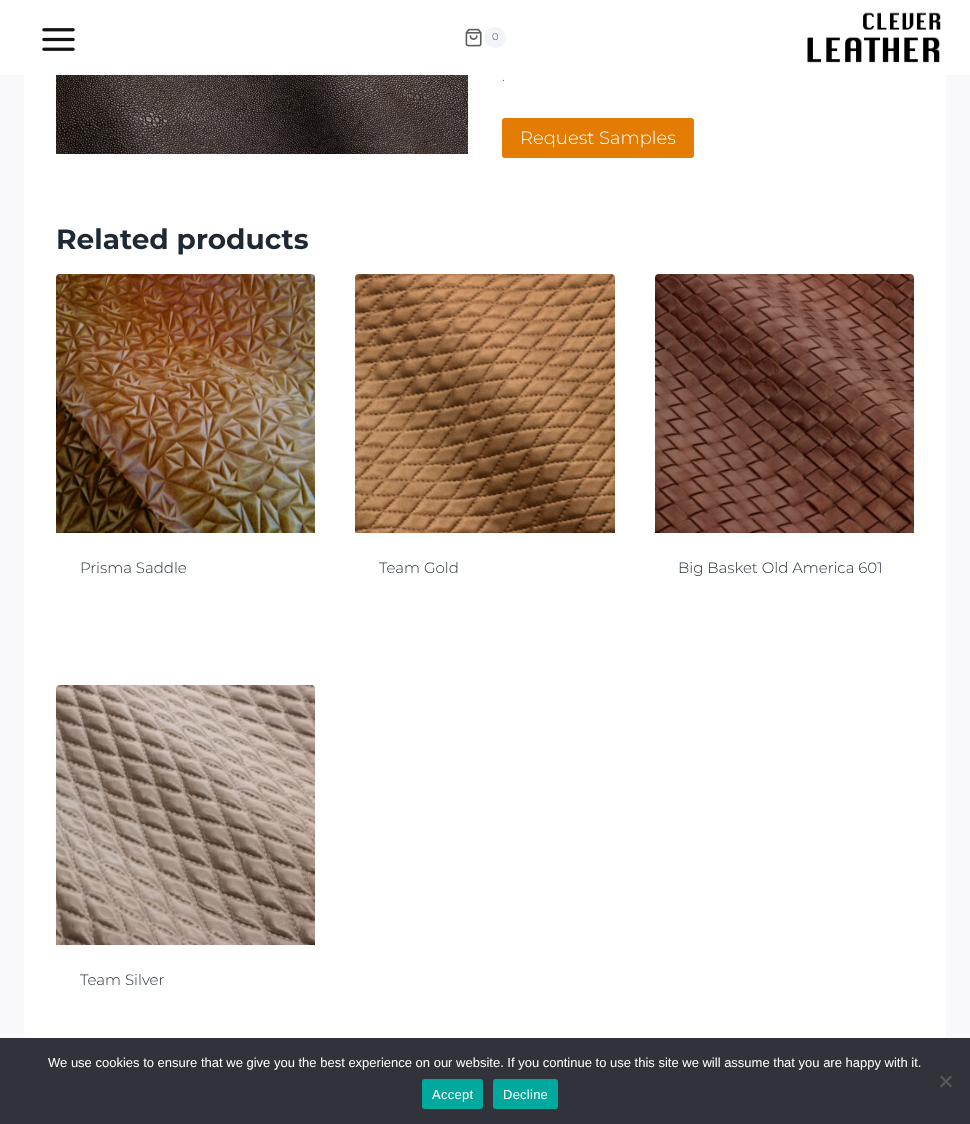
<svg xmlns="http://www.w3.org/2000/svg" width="970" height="1124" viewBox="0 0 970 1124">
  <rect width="100%" height="100%" fill="#f9f9fb"/>
  <rect x="0" y="0" width="970" height="75" fill="#ffffff"/>
  <image x="42" y="28" width="33" height="23" href="img1.png"/>
  <image x="465" y="28" width="17" height="19" href="img2.png"/>
  <rect x="484" y="27" width="22" height="21" rx="10.5" fill="#f3f4f7"/>
  <text x="492" y="40" font-family="Montserrat" font-size="10" font-weight="300" fill="#3e4c59">0</text>
  <image x="807" y="12" width="134" height="51" href="img3.png"/>
  <rect x="24" y="75" width="922" height="963" fill="#ffffff"/>
  <image x="56" y="75" width="412" height="79" href="img4.png"/>
  <text x="502" y="81" font-family="Montserrat" font-size="15" font-weight="300" fill="#5d5d5d">.</text>
  <rect x="502" y="118" width="192" height="40" rx="3" fill="#e47b02"/>
  <text x="520" y="144" font-family="Montserrat" font-size="18" font-weight="300" fill="#ffffff">Request Samples</text>
  <text x="56" y="249" font-family="Montserrat" font-size="28" font-weight="bold" fill="#1f2933">Related products</text>
  <image x="56" y="274" width="259" height="259" href="img5.png"/>
  <text x="80" y="573" font-family="Montserrat" font-size="15" font-weight="300" fill="#1f2933">Prisma Saddle</text>
  <image x="355" y="274" width="260" height="259" href="img6.png"/>
  <text x="379" y="573" font-family="Montserrat" font-size="15" font-weight="300" fill="#1f2933">Team Gold</text>
  <image x="655" y="274" width="259" height="259" href="img7.png"/>
  <text x="678" y="573" font-family="Montserrat" font-size="15" font-weight="300" fill="#1f2933">Big Basket Old America 601</text>
  <image x="56" y="685" width="259" height="260" href="img8.png"/>
  <text x="80" y="985" font-family="Montserrat" font-size="15" font-weight="300" fill="#1f2933">Team Silver</text>
  <rect x="0" y="1038" width="970" height="86" fill="#32323a"/>
  <text x="48" y="1067" font-family="Liberation Sans" font-size="13" fill="#ffffff">We use cookies to ensure that we give you the best experience on our website. If you continue to use this site we will assume that you are happy with it.</text>
  <path d="M950.5 1075.5L952 1077L941.5 1087.5L940 1086Z" fill="#59595d"/>
  <path d="M940 1077L941.5 1075.5L952 1086L950.5 1087.5Z" fill="#59595d"/>
  <rect x="422" y="1079" width="61" height="30" rx="3" fill="#00a99d"/>
  <text x="432" y="1099" font-family="Liberation Sans" font-size="13" letter-spacing="0.25" fill="#ffffff">Accept</text>
  <rect x="493" y="1079" width="65" height="30" rx="3" fill="#00a99d"/>
  <text x="503" y="1099" font-family="Liberation Sans" font-size="13" letter-spacing="0.25" fill="#ffffff">Decline</text>
</svg>
